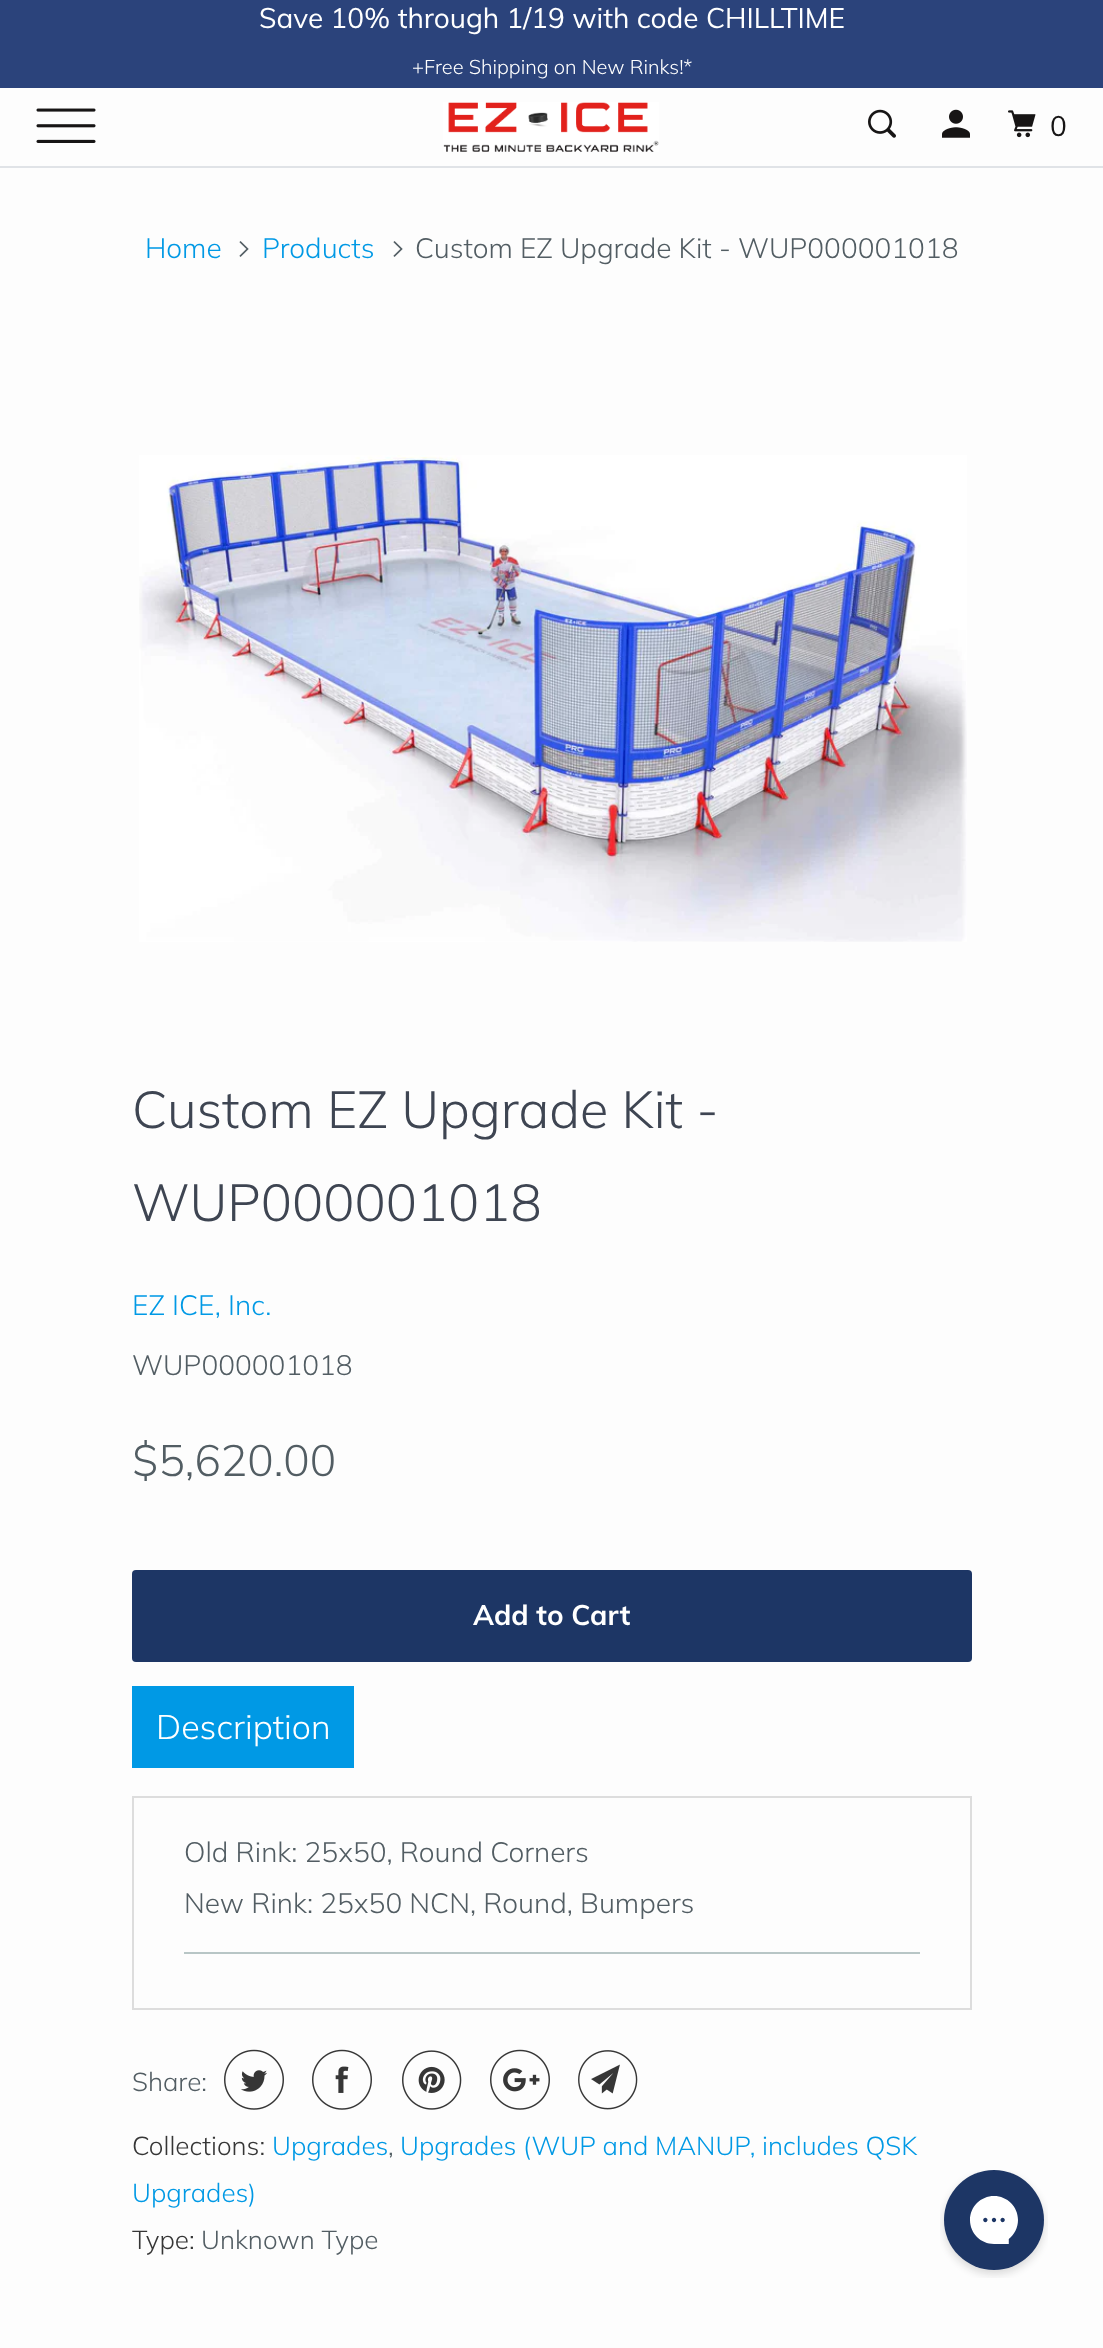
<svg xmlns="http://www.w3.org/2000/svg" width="1103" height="2348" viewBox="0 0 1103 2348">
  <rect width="100%" height="100%" fill="#fdfdfd"/>
  <rect x="0" y="0" width="1103" height="88" fill="#2b437b"/>
  <text x="259" y="28" font-family="Muli" font-size="28" fill="#ffffff">Save 10% through 1/19 with code CHILLTIME</text>
  <text x="412" y="74" font-family="Muli" font-size="20" font-weight="300" fill="#ffffff">+Free Shipping on New Rinks!*</text>
  <image x="36" y="108" width="60" height="35" href="img1.png"/>
  <rect x="0" y="166" width="1103" height="2" fill="#e0e3e7"/>
  <image x="443" y="102" width="216" height="50" href="img2.png"/>
  <image x="868" y="109" width="28" height="29" href="img3.png"/>
  <image x="942" y="109" width="28" height="29" href="img4.png"/>
  <image x="1008" y="110" width="28" height="28" href="img5.png"/>
  <text x="1050" y="136" font-family="Muli" font-size="28" fill="#171515">0</text>
  <text x="145" y="258" font-family="Muli" font-size="28" font-weight="300" fill="#0099e5">Home</text>
  <image x="239" y="241" width="10" height="16" href="img6.png"/>
  <text x="262" y="258" font-family="Muli" font-size="28" font-weight="300" fill="#0099e5">Products</text>
  <image x="393" y="241" width="10" height="16" href="img6.png"/>
  <text x="415" y="258" font-family="Muli" font-size="28" font-weight="300" fill="#525d63">Custom EZ Upgrade Kit - WUP000001018</text>
  <image x="139" y="455" width="828" height="487" href="img7.png"/>
  <text x="132" y="1128" font-family="Muli" font-size="52" font-weight="300" fill="#3e4552">Custom EZ Upgrade Kit -</text>
  <text x="132" y="1221" font-family="Muli" font-size="52" font-weight="300" fill="#3e4552">WUP000001018</text>
  <text x="132" y="1315" font-family="Muli" font-size="28" font-weight="300" fill="#0099e5">EZ ICE, Inc.</text>
  <text x="132" y="1375" font-family="Muli" font-size="28" font-weight="300" fill="#525d63">WUP000001018</text>
  <text x="132" y="1476" font-family="Muli" font-size="44" font-weight="300" fill="#525d63">$5,620.00</text>
  <rect x="132" y="1570" width="840" height="92" rx="4" fill="#1d3665"/>
  <text x="473" y="1625" font-family="Muli" font-size="28" font-weight="bold" fill="#ffffff">Add to Cart</text>
  <rect x="132" y="1686" width="222" height="82" fill="#0099e5"/>
  <text x="156" y="1739" font-family="Muli" font-size="34" font-weight="300" fill="#ffffff">Description</text>
  <rect x="133" y="1797" width="838" height="212" fill="none" stroke="#dddddd" stroke-width="2"/>
  <text x="184" y="1862" font-family="Muli" font-size="28" font-weight="300" fill="#525d63">Old Rink: 25x50, Round Corners</text>
  <text x="184" y="1913" font-family="Muli" font-size="28" font-weight="300" fill="#525d63">New Rink: 25x50 NCN, Round, Bumpers</text>
  <rect x="184" y="1952" width="736" height="2" fill="#b8c6c6"/>
  <text x="132" y="2091" font-family="Muli" font-size="26" font-weight="300" fill="#525d63">Share:</text>
  <image x="224" y="2049" width="60" height="61" href="img8.png"/>
  <image x="312" y="2049" width="60" height="61" href="img9.png"/>
  <image x="402" y="2050" width="60" height="60" href="img10.png"/>
  <image x="490" y="2049" width="60" height="61" href="img11.png"/>
  <image x="578" y="2050" width="60" height="60" href="img12.png"/>
  <text x="132" y="2155" font-family="Muli" font-size="26" font-weight="300" fill="#363636">Collections:</text>
  <text x="272" y="2155" font-family="Muli" font-size="26" font-weight="300" fill="#0099e5">Upgrades</text>
  <text x="388" y="2155" font-family="Muli" font-size="26" font-weight="300" fill="#525d63">,</text>
  <text x="400" y="2155" font-family="Muli" font-size="26" font-weight="300" fill="#0099e5">Upgrades (WUP and MANUP, includes QSK</text>
  <text x="132" y="2202" font-family="Muli" font-size="26" font-weight="300" fill="#0099e5">Upgrades)</text>
  <text x="132" y="2249" font-family="Muli" font-size="26" font-weight="300" fill="#363636">Type:</text>
  <text x="201" y="2249" font-family="Muli" font-size="26" font-weight="300" fill="#525d63">Unknown Type</text>
  <image x="940" y="2170" width="108" height="108" href="img13.png"/>
</svg>
